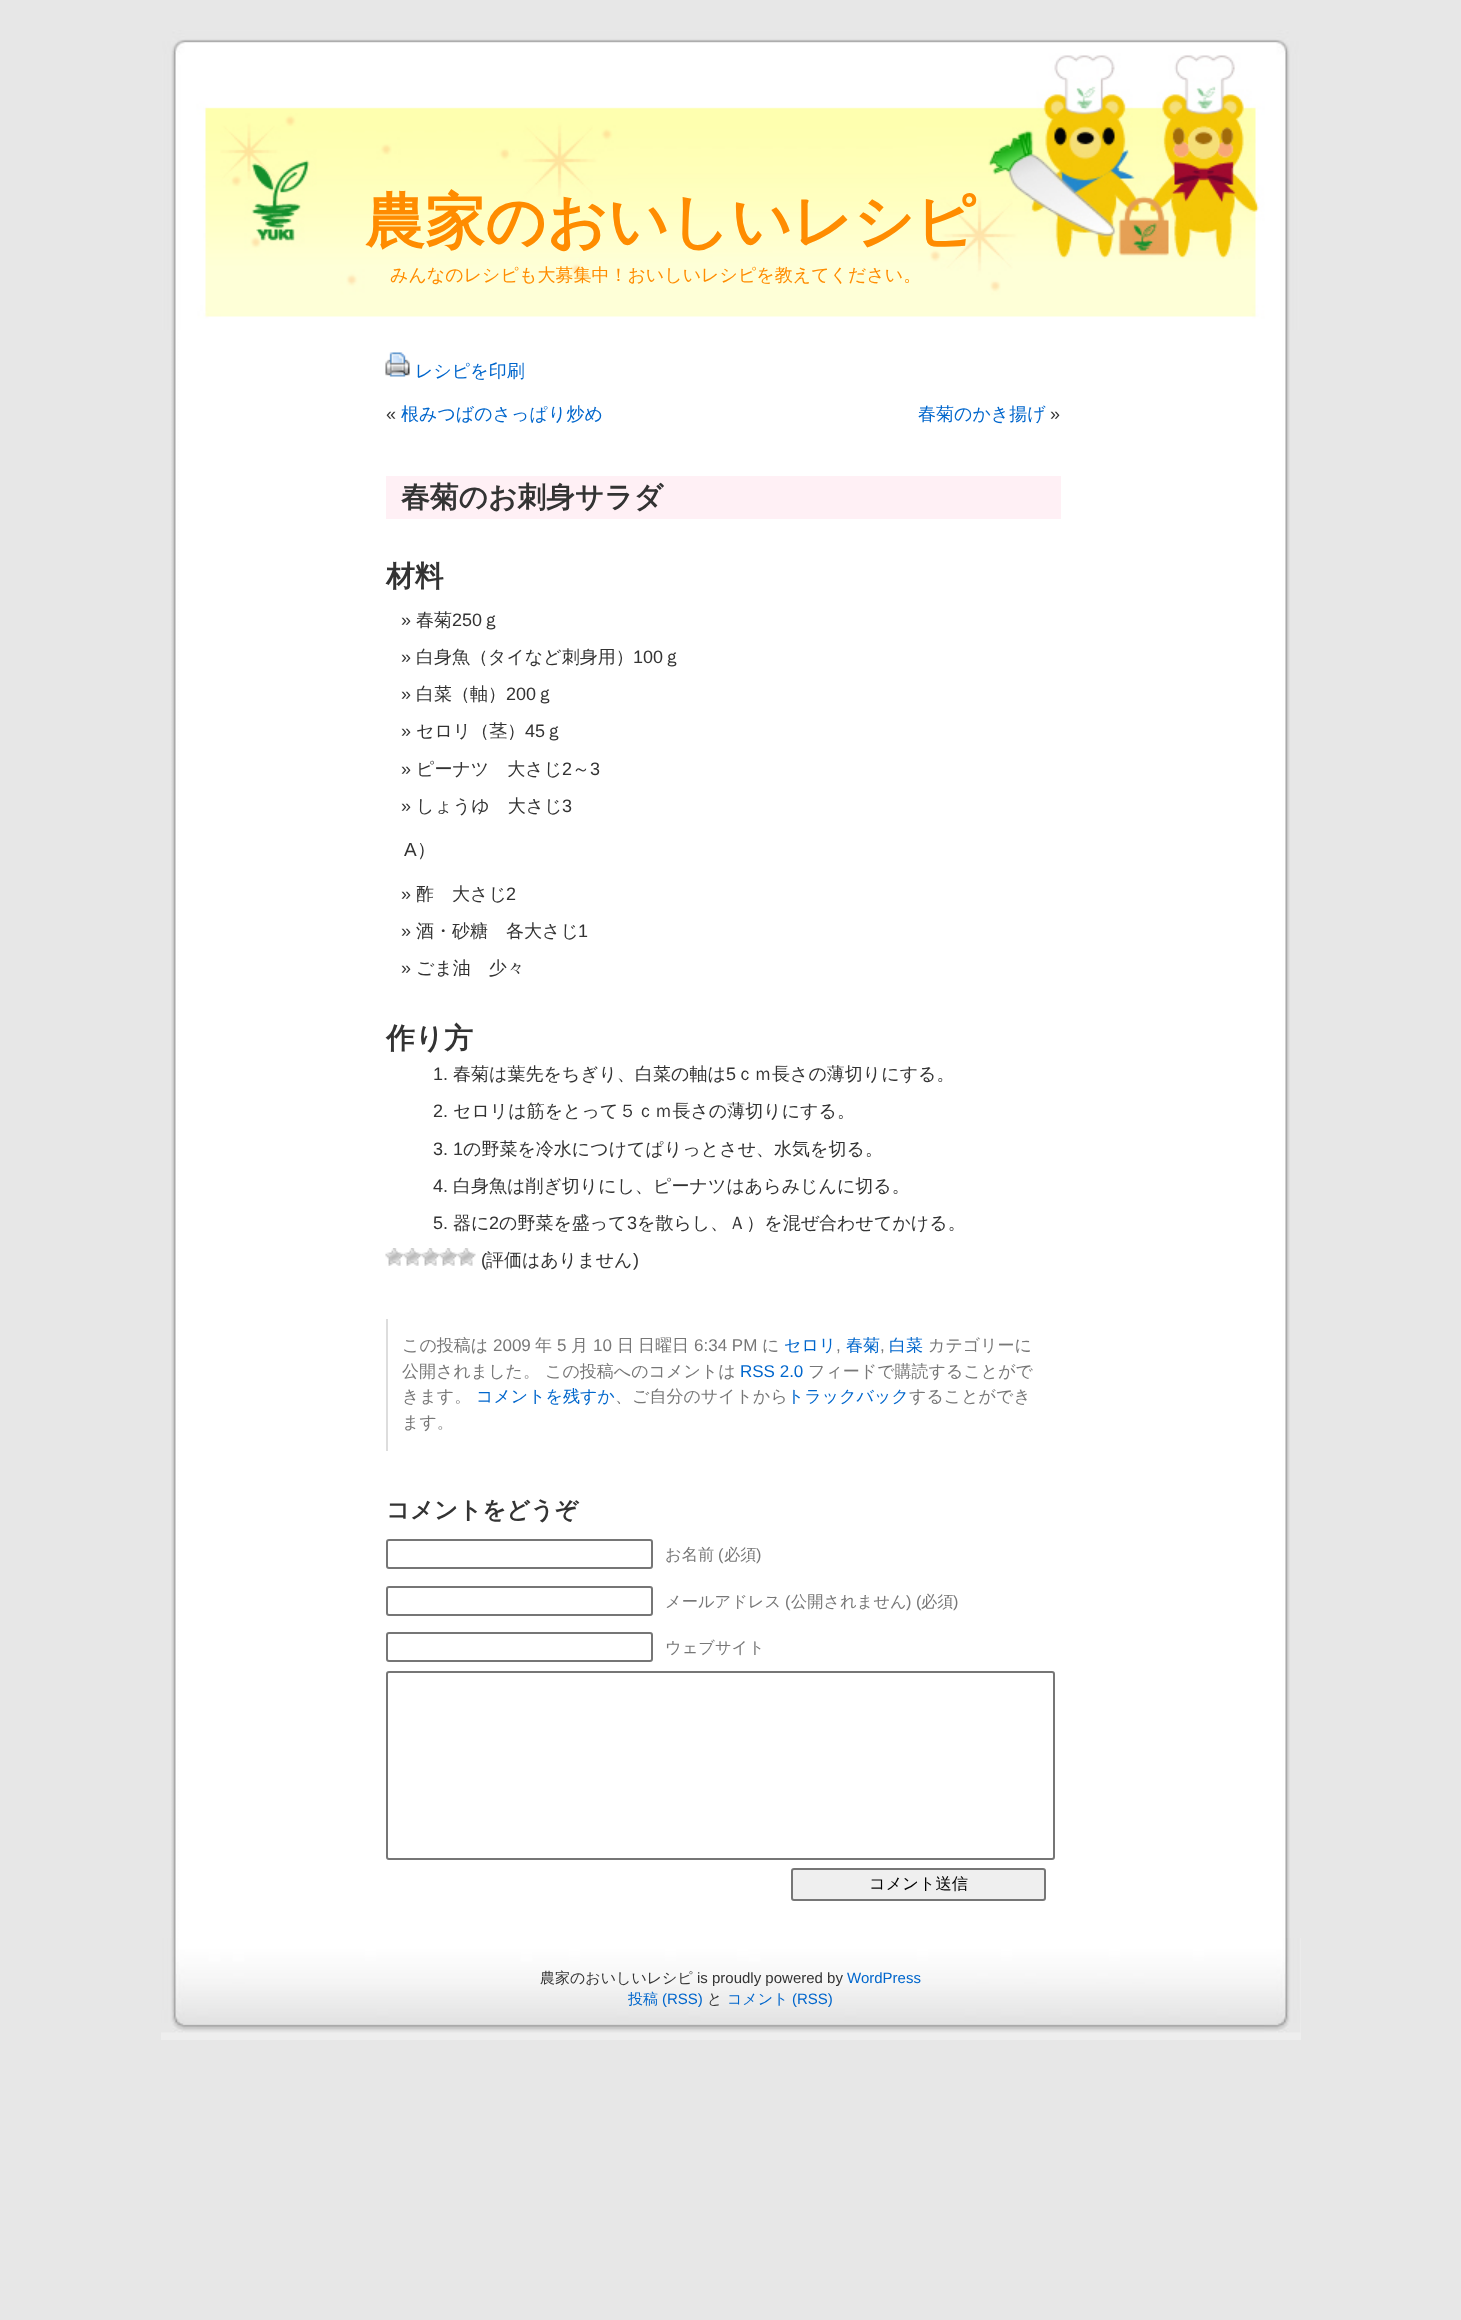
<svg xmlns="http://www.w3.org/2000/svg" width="1461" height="2320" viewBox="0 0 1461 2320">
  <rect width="100%" height="100%" fill="#e7e7e7"/>
  <image x="171" y="330" width="1119" height="1608" href="img1.png"/>
  <image x="162" y="30" width="1137" height="300" href="img2.png"/>
  <text x="365" y="242" font-family="WenQuanYi Zen Hei" font-size="60" font-weight="bold" fill="#ff8c00">農家のおいしいレシピ</text>
  <text x="390" y="281" font-family="WenQuanYi Zen Hei" font-size="18" font-weight="500" fill="#ff8c00">みんなのレシピも大募集中！おいしいレシピを教えてください。</text>
  <image x="385" y="352" width="25" height="25" href="img3.png"/>
  <text x="415" y="377" font-family="WenQuanYi Zen Hei" font-size="18" font-weight="500" fill="#0066cc">レシピを印刷</text>
  <text x="386" y="420" font-family="Liberation Sans" font-size="18" fill="#333333">«</text>
  <text x="401" y="420" font-family="WenQuanYi Zen Hei" font-size="18" font-weight="500" fill="#0066cc">根みつばのさっぱり炒め</text>
  <text x="918" y="420" font-family="WenQuanYi Zen Hei" font-size="18" font-weight="500" fill="#0066cc">春菊のかき揚げ</text>
  <text x="1050" y="420" font-family="Liberation Sans" font-size="18" fill="#333333">»</text>
  <rect x="386" y="476" width="675" height="43" fill="#fff0f5"/>
  <text x="401" y="507" font-family="WenQuanYi Zen Hei" font-size="28.75" font-weight="bold" fill="#333333">春菊のお刺身サラダ</text>
  <text x="386" y="586" font-family="WenQuanYi Zen Hei" font-size="28.75" font-weight="bold" fill="#333333">材料</text>
  <text x="401" y="626" font-family="Liberation Sans" font-size="18" fill="#333333">»</text>
  <text x="416" y="626" font-family="WenQuanYi Zen Hei" font-size="18" font-weight="500" fill="#333333">春菊</text>
  <text x="452" y="626" font-family="Liberation Sans" font-size="18" fill="#333333">250</text>
  <text x="482" y="626" font-family="WenQuanYi Zen Hei" font-size="18" font-weight="500" fill="#333333">ｇ</text>
  <text x="401" y="663" font-family="Liberation Sans" font-size="18" fill="#333333">»</text>
  <text x="416" y="663" font-family="WenQuanYi Zen Hei" font-size="18" font-weight="500" fill="#333333">白身魚（タイなど刺身用）</text>
  <text x="633" y="663" font-family="Liberation Sans" font-size="18" fill="#333333">100</text>
  <text x="663" y="663" font-family="WenQuanYi Zen Hei" font-size="18" font-weight="500" fill="#333333">ｇ</text>
  <text x="401" y="700" font-family="Liberation Sans" font-size="18" fill="#333333">»</text>
  <text x="416" y="700" font-family="WenQuanYi Zen Hei" font-size="18" font-weight="500" fill="#333333">白菜（軸）</text>
  <text x="506" y="700" font-family="Liberation Sans" font-size="18" fill="#333333">200</text>
  <text x="536" y="700" font-family="WenQuanYi Zen Hei" font-size="18" font-weight="500" fill="#333333">ｇ</text>
  <text x="401" y="737" font-family="Liberation Sans" font-size="18" fill="#333333">»</text>
  <text x="416" y="737" font-family="WenQuanYi Zen Hei" font-size="18" font-weight="500" fill="#333333">セロリ（茎）</text>
  <text x="525" y="737" font-family="Liberation Sans" font-size="18" fill="#333333">45</text>
  <text x="545" y="737" font-family="WenQuanYi Zen Hei" font-size="18" font-weight="500" fill="#333333">ｇ</text>
  <text x="401" y="775" font-family="Liberation Sans" font-size="18" fill="#333333">»</text>
  <text x="416" y="775" font-family="WenQuanYi Zen Hei" font-size="18" font-weight="500" fill="#333333">ピーナツ　大さじ</text>
  <text x="562" y="775" font-family="Liberation Sans" font-size="18" fill="#333333">2</text>
  <text x="572" y="775" font-family="WenQuanYi Zen Hei" font-size="18" font-weight="500" fill="#333333">～</text>
  <text x="590" y="775" font-family="Liberation Sans" font-size="18" fill="#333333">3</text>
  <text x="401" y="812" font-family="Liberation Sans" font-size="18" fill="#333333">»</text>
  <text x="416" y="812" font-family="WenQuanYi Zen Hei" font-size="18" font-weight="500" fill="#333333">しょうゆ　大さじ</text>
  <text x="562" y="812" font-family="Liberation Sans" font-size="18" fill="#333333">3</text>
  <text x="404" y="856" font-family="Liberation Sans" font-size="19" fill="#333333">A</text>
  <text x="417" y="856" font-family="WenQuanYi Zen Hei" font-size="19" font-weight="500" fill="#333333">）</text>
  <text x="401" y="900" font-family="Liberation Sans" font-size="18" fill="#333333">»</text>
  <text x="416" y="900" font-family="WenQuanYi Zen Hei" font-size="18" font-weight="500" fill="#333333">酢　大さじ</text>
  <text x="506" y="900" font-family="Liberation Sans" font-size="18" fill="#333333">2</text>
  <text x="401" y="937" font-family="Liberation Sans" font-size="18" fill="#333333">»</text>
  <text x="416" y="937" font-family="WenQuanYi Zen Hei" font-size="18" font-weight="500" fill="#333333">酒・砂糖　各大さじ</text>
  <text x="578" y="937" font-family="Liberation Sans" font-size="18" fill="#333333">1</text>
  <text x="401" y="974" font-family="Liberation Sans" font-size="18" fill="#333333">»</text>
  <text x="416" y="974" font-family="WenQuanYi Zen Hei" font-size="18" font-weight="500" fill="#333333">ごま油　少々</text>
  <text x="386" y="1048" font-family="WenQuanYi Zen Hei" font-size="28.75" font-weight="bold" fill="#333333">作り方</text>
  <text x="433" y="1080" font-family="Liberation Sans" font-size="18" fill="#333333">1.</text>
  <text x="453" y="1080" font-family="WenQuanYi Zen Hei" font-size="18" font-weight="500" fill="#333333">春菊は葉先をちぎり、白菜の軸は</text>
  <text x="726" y="1080" font-family="Liberation Sans" font-size="18" fill="#333333">5</text>
  <text x="736" y="1080" font-family="WenQuanYi Zen Hei" font-size="18" font-weight="500" fill="#333333">ｃｍ長さの薄切りにする。</text>
  <text x="433" y="1117" font-family="Liberation Sans" font-size="18" fill="#333333">2.</text>
  <text x="453" y="1117" font-family="WenQuanYi Zen Hei" font-size="18" font-weight="500" fill="#333333">セロリは筋をとって５ｃｍ長さの薄切りにする。</text>
  <text x="433" y="1155" font-family="Liberation Sans" font-size="18" fill="#333333">3. 1</text>
  <text x="463" y="1155" font-family="WenQuanYi Zen Hei" font-size="18" font-weight="500" fill="#333333">の野菜を冷水につけてぱりっとさせ、水気を切る。</text>
  <text x="433" y="1192" font-family="Liberation Sans" font-size="18" fill="#333333">4.</text>
  <text x="453" y="1192" font-family="WenQuanYi Zen Hei" font-size="18" font-weight="500" fill="#333333">白身魚は削ぎ切りにし、ピーナツはあらみじんに切る。</text>
  <text x="433" y="1229" font-family="Liberation Sans" font-size="18" fill="#333333">5.</text>
  <text x="453" y="1229" font-family="WenQuanYi Zen Hei" font-size="18" font-weight="500" fill="#333333">器に</text>
  <text x="489" y="1229" font-family="Liberation Sans" font-size="18" fill="#333333">2</text>
  <text x="499" y="1229" font-family="WenQuanYi Zen Hei" font-size="18" font-weight="500" fill="#333333">の野菜を盛って</text>
  <text x="627" y="1229" font-family="Liberation Sans" font-size="18" fill="#333333">3</text>
  <text x="637" y="1229" font-family="WenQuanYi Zen Hei" font-size="18" font-weight="500" fill="#333333">を散らし、Ａ）を混ぜ合わせてかける。</text>
  <image x="385" y="1248" width="19" height="18" href="img4.png"/>
  <image x="403" y="1248" width="19" height="18" href="img5.png"/>
  <image x="421" y="1248" width="19" height="18" href="img5.png"/>
  <image x="439" y="1248" width="19" height="18" href="img5.png"/>
  <image x="457" y="1248" width="19" height="18" href="img6.png"/>
  <text x="481" y="1266" font-family="Liberation Sans" font-size="18" fill="#333333">(</text>
  <text x="486" y="1266" font-family="WenQuanYi Zen Hei" font-size="18" font-weight="500" fill="#333333">評価はありません</text>
  <text x="633" y="1266" font-family="Liberation Sans" font-size="18" fill="#333333">)</text>
  <rect x="386" y="1319" width="2" height="132" fill="#dddddd"/>
  <text x="402" y="1351" font-family="WenQuanYi Zen Hei" font-size="17" font-weight="500" fill="#777777">この投稿は</text>
  <text x="493" y="1351" font-family="Liberation Sans" font-size="17" fill="#777777">2009</text>
  <text x="535" y="1351" font-family="WenQuanYi Zen Hei" font-size="17" font-weight="500" fill="#777777">年</text>
  <text x="557" y="1351" font-family="Liberation Sans" font-size="17" fill="#777777">5</text>
  <text x="571" y="1351" font-family="WenQuanYi Zen Hei" font-size="17" font-weight="500" fill="#777777">月</text>
  <text x="593" y="1351" font-family="Liberation Sans" font-size="17" fill="#777777">10</text>
  <text x="617" y="1351" font-family="WenQuanYi Zen Hei" font-size="17" font-weight="500" fill="#777777">日</text>
  <text x="638" y="1351" font-family="WenQuanYi Zen Hei" font-size="17" font-weight="500" fill="#777777">日曜日</text>
  <text x="694" y="1351" font-family="Liberation Sans" font-size="17" fill="#777777">6:34 PM</text>
  <text x="762" y="1351" font-family="WenQuanYi Zen Hei" font-size="17" font-weight="500" fill="#777777">に</text>
  <text x="784" y="1351" font-family="WenQuanYi Zen Hei" font-size="17" font-weight="500" fill="#0066cc">セロリ</text>
  <text x="836" y="1351" font-family="Liberation Sans" font-size="17" fill="#777777">,</text>
  <text x="846" y="1351" font-family="WenQuanYi Zen Hei" font-size="17" font-weight="500" fill="#0066cc">春菊</text>
  <text x="880" y="1351" font-family="Liberation Sans" font-size="17" fill="#777777">,</text>
  <text x="889" y="1351" font-family="WenQuanYi Zen Hei" font-size="17" font-weight="500" fill="#0066cc">白菜</text>
  <text x="928" y="1351" font-family="WenQuanYi Zen Hei" font-size="17" font-weight="500" fill="#777777">カテゴリーに</text>
  <text x="402" y="1377" font-family="WenQuanYi Zen Hei" font-size="17" font-weight="500" fill="#777777">公開されました。</text>
  <text x="545" y="1377" font-family="WenQuanYi Zen Hei" font-size="17" font-weight="500" fill="#777777">この投稿へのコメントは</text>
  <text x="740" y="1377" font-family="Liberation Sans" font-size="17" fill="#0066cc">RSS 2.0</text>
  <text x="808" y="1377" font-family="WenQuanYi Zen Hei" font-size="17" font-weight="500" fill="#777777">フィードで購読することがで</text>
  <text x="402" y="1402" font-family="WenQuanYi Zen Hei" font-size="17" font-weight="500" fill="#777777">きます。</text>
  <text x="476" y="1402" font-family="WenQuanYi Zen Hei" font-size="17" font-weight="500" fill="#0066cc">コメントを残すか</text>
  <text x="615" y="1402" font-family="WenQuanYi Zen Hei" font-size="17" font-weight="500" fill="#777777">、ご自分のサイトから</text>
  <text x="787" y="1402" font-family="WenQuanYi Zen Hei" font-size="17" font-weight="500" fill="#0066cc">トラックバック</text>
  <text x="909" y="1402" font-family="WenQuanYi Zen Hei" font-size="17" font-weight="500" fill="#777777">することができ</text>
  <text x="402" y="1428" font-family="WenQuanYi Zen Hei" font-size="17" font-weight="500" fill="#777777">ます。</text>
  <text x="386" y="1518" font-family="WenQuanYi Zen Hei" font-size="23.5" font-weight="bold" fill="#333333">コメントをどうぞ</text>
  <rect x="387" y="1540" width="265" height="28" rx="2" fill="none" stroke="#767676" stroke-width="2"/>
  <text x="665" y="1560" font-family="WenQuanYi Zen Hei" font-size="16.25" font-weight="500" fill="#777777">お名前</text>
  <text x="718" y="1560" font-family="Liberation Sans" font-size="16.25" fill="#777777">(</text>
  <text x="724" y="1560" font-family="WenQuanYi Zen Hei" font-size="16.25" font-weight="500" fill="#777777">必須</text>
  <text x="756" y="1560" font-family="Liberation Sans" font-size="16.25" fill="#777777">)</text>
  <rect x="387" y="1587" width="265" height="28" rx="2" fill="none" stroke="#767676" stroke-width="2"/>
  <text x="665" y="1607" font-family="WenQuanYi Zen Hei" font-size="16.25" font-weight="500" fill="#777777">メールアドレス</text>
  <text x="785" y="1607" font-family="Liberation Sans" font-size="16.25" fill="#777777">(</text>
  <text x="791" y="1607" font-family="WenQuanYi Zen Hei" font-size="16.25" font-weight="500" fill="#777777">公開されません</text>
  <text x="906" y="1607" font-family="Liberation Sans" font-size="16.25" fill="#777777">) (</text>
  <text x="921" y="1607" font-family="WenQuanYi Zen Hei" font-size="16.25" font-weight="500" fill="#777777">必須</text>
  <text x="953" y="1607" font-family="Liberation Sans" font-size="16.25" fill="#777777">)</text>
  <rect x="387" y="1633" width="265" height="28" rx="2" fill="none" stroke="#767676" stroke-width="2"/>
  <text x="665" y="1653" font-family="WenQuanYi Zen Hei" font-size="16.25" font-weight="500" fill="#777777">ウェブサイト</text>
  <rect x="387" y="1672" width="667" height="187" rx="2" fill="none" stroke="#767676" stroke-width="2"/>
  <rect x="792" y="1869" width="253" height="31" rx="2" fill="#efefef" stroke="#767676" stroke-width="2"/>
  <text x="869" y="1889" font-family="WenQuanYi Zen Hei" font-size="16.25" font-weight="500" fill="#000000">コメント送信</text>
  <rect x="161" y="1938" width="1140" height="102" fill="#eeeeee"/>
  <image x="161" y="1938" width="1140" height="95" href="img7.png"/>
  <text x="540" y="1983" font-family="WenQuanYi Zen Hei" font-size="15" font-weight="500" fill="#333333">農家のおいしいレシピ</text>
  <text x="697" y="1983" font-family="Liberation Sans" font-size="15" fill="#333333">is proudly powered by</text>
  <text x="847" y="1983" font-family="Liberation Sans" font-size="15" fill="#0066cc">WordPress</text>
  <text x="628" y="2004" font-family="WenQuanYi Zen Hei" font-size="15" font-weight="500" fill="#0066cc">投稿</text>
  <text x="662" y="2004" font-family="Liberation Sans" font-size="15" fill="#0066cc">(RSS)</text>
  <text x="707" y="2004" font-family="WenQuanYi Zen Hei" font-size="15" font-weight="500" fill="#333333">と</text>
  <text x="727" y="2004" font-family="WenQuanYi Zen Hei" font-size="15" font-weight="500" fill="#0066cc">コメント</text>
  <text x="792" y="2004" font-family="Liberation Sans" font-size="15" fill="#0066cc">(RSS)</text>
</svg>
